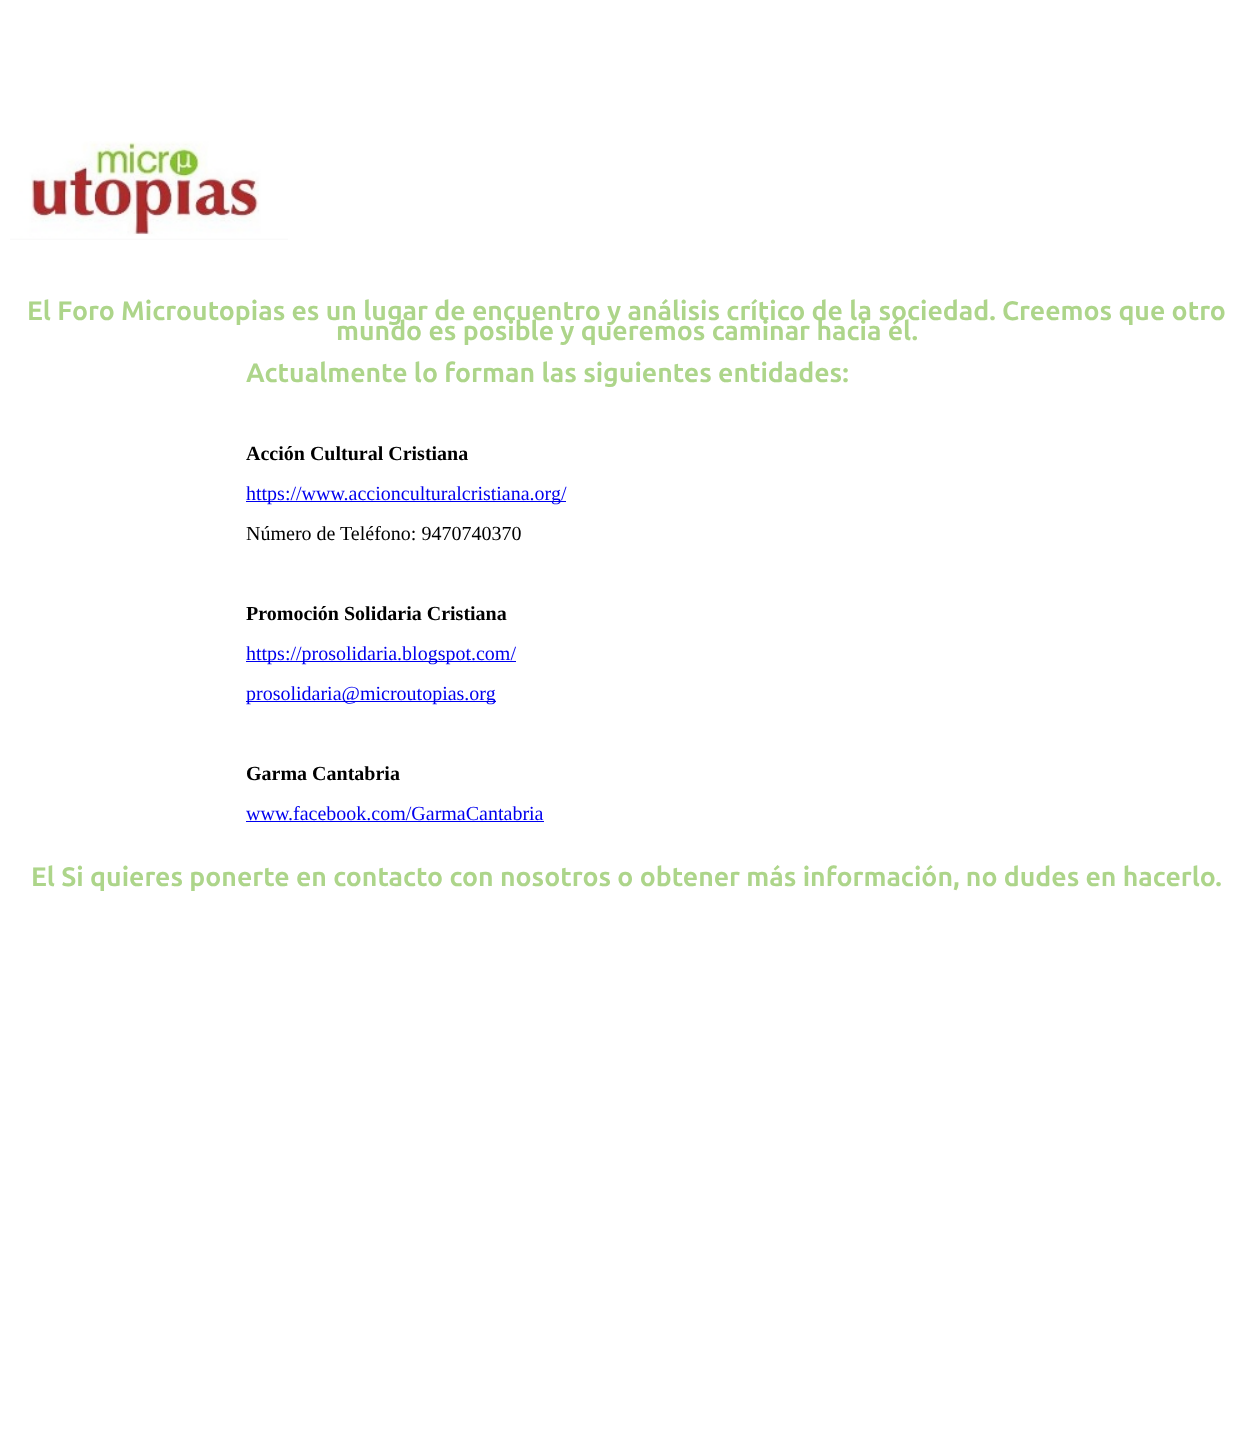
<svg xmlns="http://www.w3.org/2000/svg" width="1253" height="1447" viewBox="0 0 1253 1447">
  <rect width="100%" height="100%" fill="#ffffff"/>
  <image x="10" y="141" width="278" height="99" href="img1.png"/>
  <text x="27" y="320" font-family="Ubuntu" font-size="26.65" font-weight="bold" fill="#add58a">El Foro Microutopias es un lugar de encuentro y análisis crítico de la sociedad. Creemos que otro</text>
  <text x="336" y="340" font-family="Ubuntu" font-size="26.65" font-weight="bold" fill="#add58a">mundo es posible y queremos caminar hacia él.</text>
  <text x="246" y="382" font-family="Ubuntu" font-size="26.65" font-weight="bold" fill="#add58a">Actualmente lo forman las siguientes entidades:</text>
  <text x="246" y="460" font-family="Liberation Serif" font-size="20" font-weight="bold" fill="#000000">Acción Cultural Cristiana</text>
  <rect x="246" y="501" width="320" height="1" fill="#0000ee"/>
  <text x="246" y="500" font-family="Liberation Serif" font-size="20" fill="#0000ee">https://www.accionculturalcristiana.org/</text>
  <text x="246" y="540" font-family="Liberation Serif" font-size="20" fill="#000000">Número de Teléfono: 9470740370</text>
  <text x="246" y="620" font-family="Liberation Serif" font-size="20" font-weight="bold" fill="#000000">Promoción Solidaria Cristiana</text>
  <rect x="246" y="661" width="270" height="1" fill="#0000ee"/>
  <text x="246" y="660" font-family="Liberation Serif" font-size="20" fill="#0000ee">https://prosolidaria.blogspot.com/</text>
  <rect x="246" y="701" width="250" height="1" fill="#0000ee"/>
  <text x="246" y="700" font-family="Liberation Serif" font-size="20" fill="#0000ee">prosolidaria@microutopias.org</text>
  <text x="246" y="780" font-family="Liberation Serif" font-size="20" font-weight="bold" fill="#000000">Garma Cantabria</text>
  <text x="246" y="820" font-family="Liberation Serif" font-size="20" fill="#0000ee">www.facebook.com/GarmaCantabria</text>
  <rect x="246" y="821" width="298" height="1" fill="#0000ee"/>
  <text x="31" y="886" font-family="Ubuntu" font-size="26.65" font-weight="bold" fill="#add58a">El Si quieres ponerte en contacto con nosotros o obtener más información, no dudes en hacerlo.</text>
</svg>
